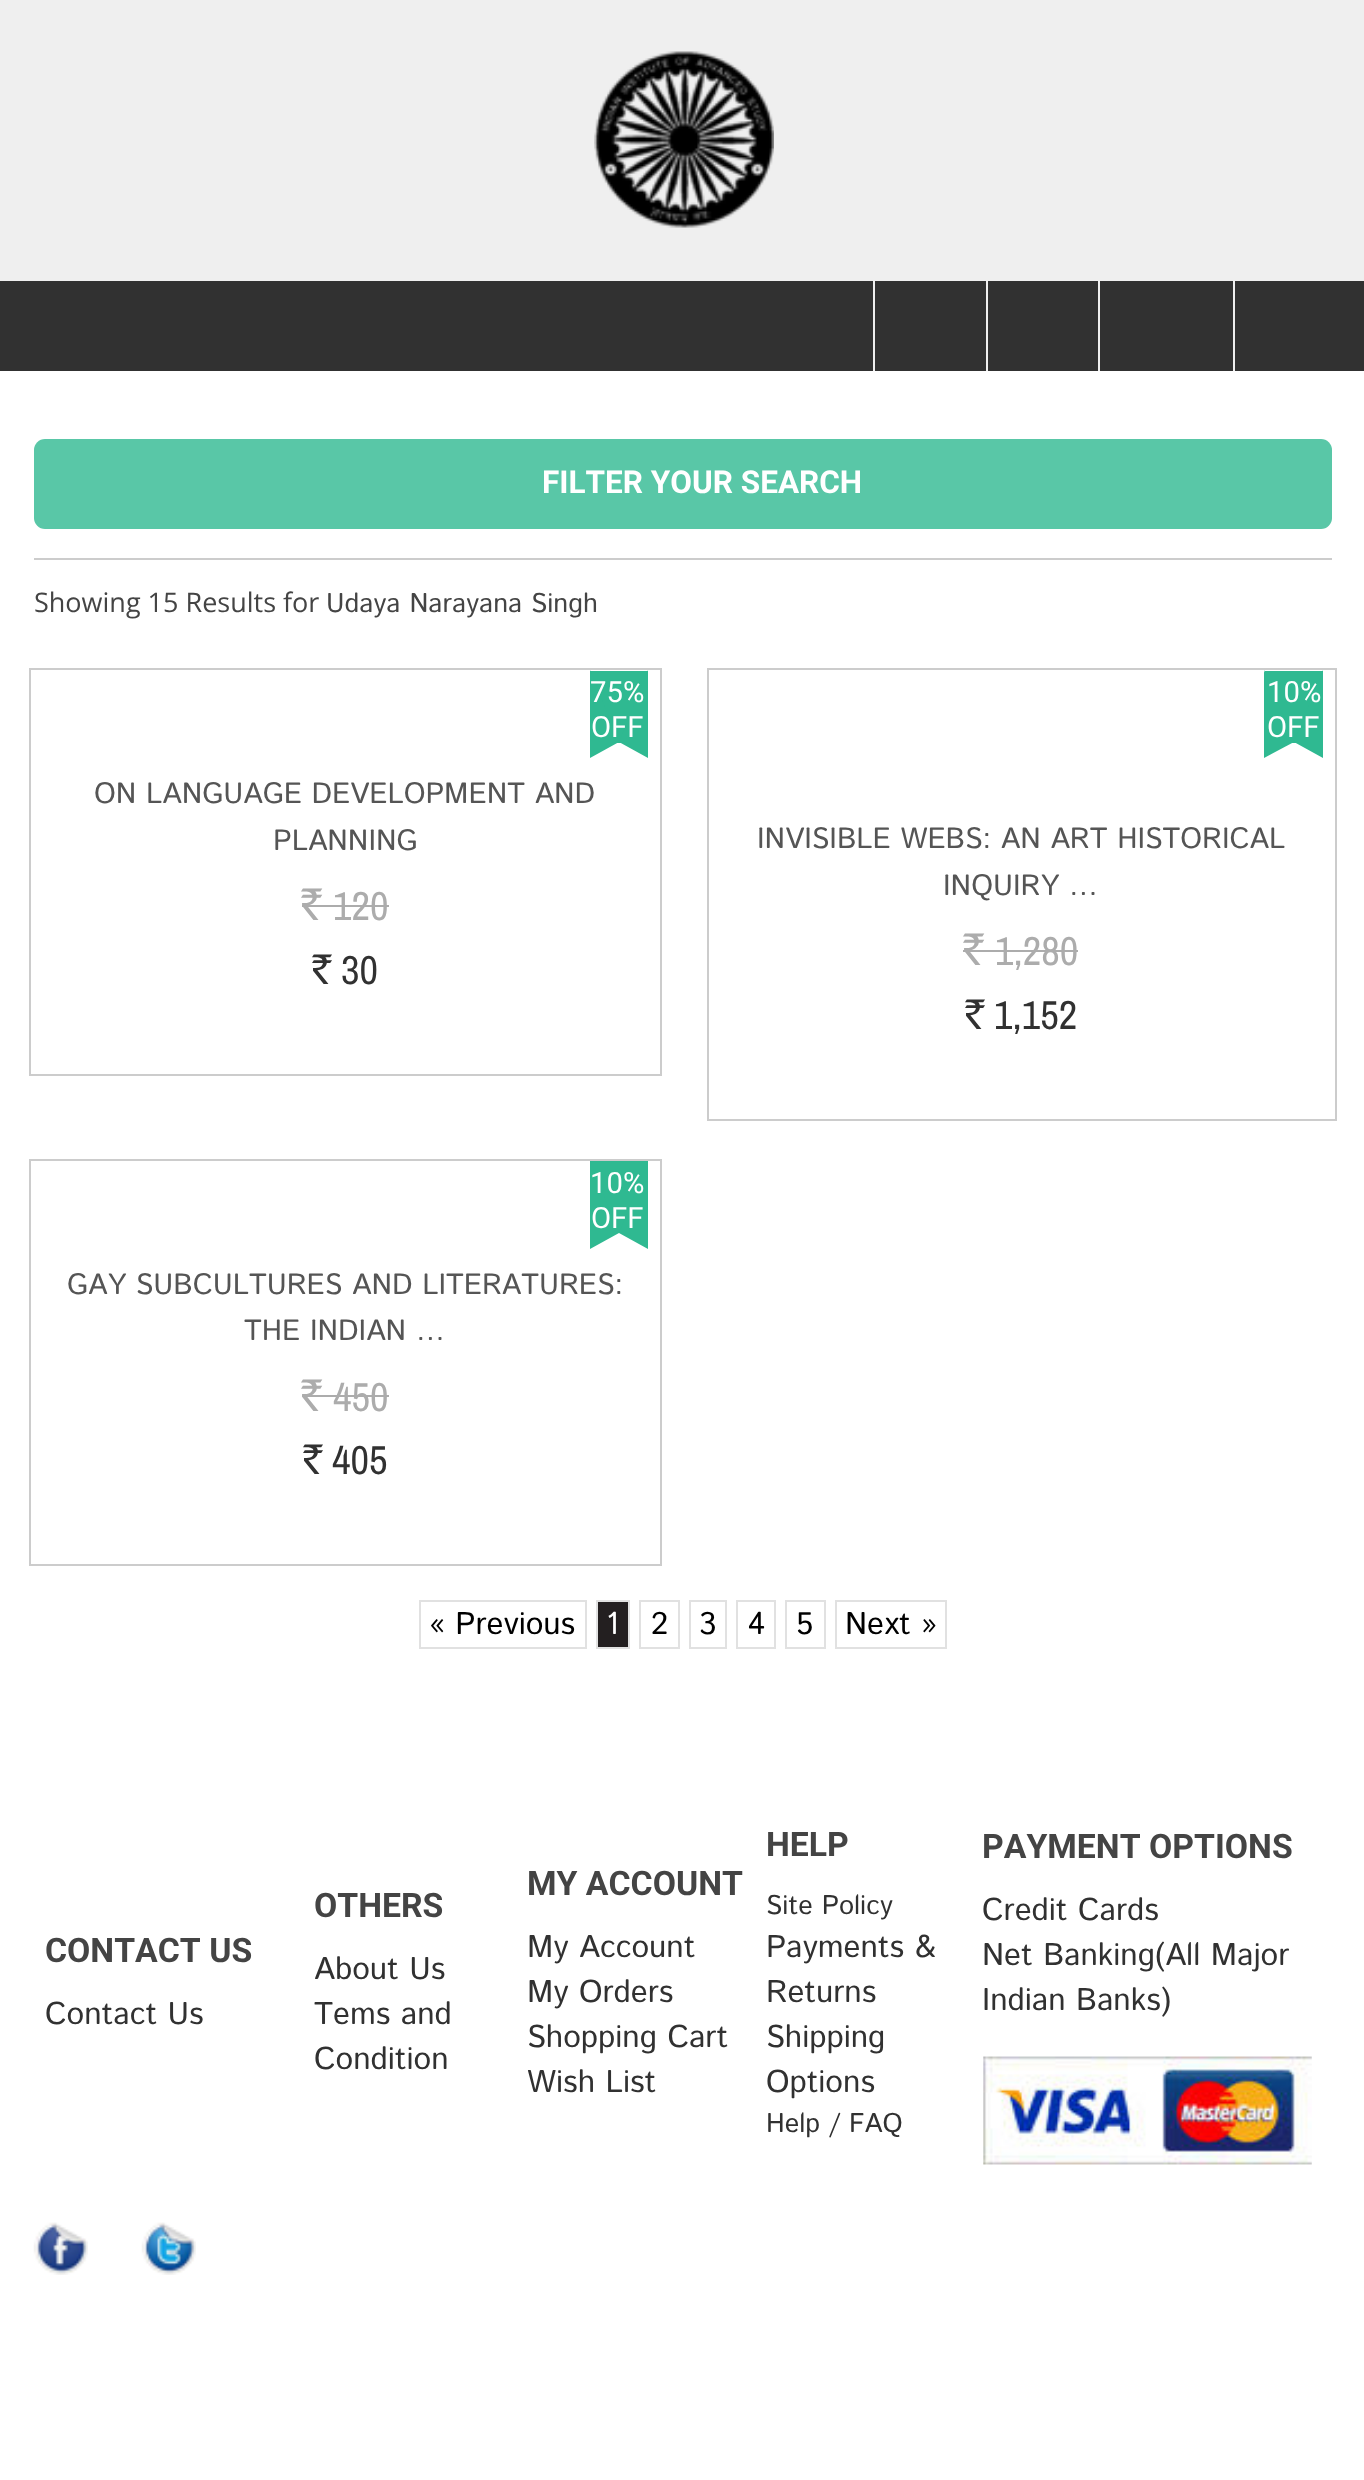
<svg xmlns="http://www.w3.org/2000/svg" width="1364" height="2480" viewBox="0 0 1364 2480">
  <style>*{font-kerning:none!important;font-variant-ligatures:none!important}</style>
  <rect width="100%" height="100%" fill="#ffffff"/>
  <rect x="0" y="0" width="1364" height="281" fill="#efefef"/>
  <image x="594" y="51" width="180" height="177" href="img1.png"/>
  <rect x="0" y="281" width="1364" height="90" fill="#313131"/>
  <rect x="873" y="281" width="2" height="90" fill="#efefef"/>
  <rect x="986" y="281" width="2" height="90" fill="#efefef"/>
  <rect x="1098" y="281" width="2" height="90" fill="#efefef"/>
  <rect x="1233" y="281" width="2" height="90" fill="#efefef"/>
  <rect x="34" y="439" width="1298" height="90" rx="11" fill="#59c7a7"/>
  <text x="542" y="493" font-family="Roboto" font-size="31.5" font-weight="bold" fill="#ffffff">FILTER YOUR SEARCH</text>
  <rect x="34" y="558" width="1298" height="2" fill="#cccccc"/>
  <text x="34" y="612" font-family="Open Sans" font-size="27" fill="#444444">Showing 15 Results for</text>
  <text x="326" y="612" font-family="Istok Web" font-size="27" fill="#444444">Udaya Narayana Singh</text>
  <rect x="30" y="669" width="631" height="406" fill="none" stroke="#cccccc" stroke-width="2"/>
  <rect x="590" y="671" width="58" height="72" fill="#2fb991"/>
  <path d="M648 670V758L619 742Z" fill="#2fb991"/>
  <path d="M590 758V670L619 742Z" fill="#2fb991"/>
  <text x="590" y="702" font-family="Roboto" font-size="29.25" fill="#ffffff">75%</text>
  <text x="591" y="737" font-family="Roboto" font-size="29.25" fill="#ffffff">OFF</text>
  <text x="301" y="920" font-family="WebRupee" font-size="43" fill="#acacac">Rs.</text>
  <text x="333" y="920" font-family="Archivo Narrow" font-size="40.5" fill="#acacac">120</text>
  <rect x="302" y="905" width="87" height="2" fill="#acacac"/>
  <text x="312" y="984" font-family="WebRupee" font-size="40.5" fill="#313131">Rs.</text>
  <text x="341" y="984" font-family="Archivo Narrow" font-size="40.5" fill="#313131">30</text>
  <text x="94" y="803" font-family="Istok Web" font-size="29.25" fill="#555555">ON LANGUAGE DEVELOPMENT AND</text>
  <text x="273" y="850" font-family="Istok Web" font-size="29.25" fill="#555555">PLANNING</text>
  <rect x="708" y="669" width="628" height="451" fill="none" stroke="#cccccc" stroke-width="2"/>
  <rect x="1265" y="671" width="58" height="72" fill="#2fb991"/>
  <path d="M1323 670V758L1294 742Z" fill="#2fb991"/>
  <path d="M1264 758V670L1294 742Z" fill="#2fb991"/>
  <text x="1267" y="702" font-family="Roboto" font-size="29.25" fill="#ffffff">10%</text>
  <text x="1267" y="737" font-family="Roboto" font-size="29.25" fill="#ffffff">OFF</text>
  <text x="963" y="965" font-family="WebRupee" font-size="43" fill="#acacac">Rs.</text>
  <text x="995" y="965" font-family="Archivo Narrow" font-size="40.5" fill="#acacac">1,280</text>
  <rect x="963" y="950" width="115" height="2" fill="#acacac"/>
  <text x="965" y="1029" font-family="WebRupee" font-size="40.5" fill="#313131">Rs.</text>
  <text x="994" y="1029" font-family="Archivo Narrow" font-size="40.5" fill="#313131">1,152</text>
  <text x="757" y="848" font-family="Istok Web" font-size="29.25" fill="#555555">INVISIBLE WEBS: AN ART HISTORICAL</text>
  <text x="943" y="895" font-family="Istok Web" font-size="29.25" fill="#555555">INQUIRY …</text>
  <rect x="30" y="1160" width="631" height="405" fill="none" stroke="#cccccc" stroke-width="2"/>
  <rect x="590" y="1161" width="58" height="72" fill="#2fb991"/>
  <path d="M648 1161V1249L619 1233Z" fill="#2fb991"/>
  <path d="M590 1249V1161L619 1233Z" fill="#2fb991"/>
  <text x="590" y="1193" font-family="Roboto" font-size="29.25" fill="#ffffff">10%</text>
  <text x="591" y="1228" font-family="Roboto" font-size="29.25" fill="#ffffff">OFF</text>
  <text x="301" y="1411" font-family="WebRupee" font-size="43" fill="#acacac">Rs.</text>
  <text x="333" y="1411" font-family="Archivo Narrow" font-size="40.5" fill="#acacac">450</text>
  <rect x="302" y="1395" width="87" height="2" fill="#acacac"/>
  <text x="303" y="1474" font-family="WebRupee" font-size="40.5" fill="#313131">Rs.</text>
  <text x="332" y="1474" font-family="Archivo Narrow" font-size="40.5" fill="#313131">405</text>
  <text x="67" y="1294" font-family="Istok Web" font-size="29.25" fill="#555555">GAY SUBCULTURES</text>
  <text x="352" y="1294" font-family="Istok Web" font-size="29.25" fill="#555555">AND LITERATURES:</text>
  <text x="244" y="1340" font-family="Istok Web" font-size="29.25" fill="#555555">THE INDIAN …</text>
  <rect x="420" y="1601" width="166" height="47" fill="none" stroke="#e1e1e1" stroke-width="2"/>
  <text x="429" y="1634" font-family="Istok Web" font-size="31.5" fill="#000000">« Previous</text>
  <rect x="597" y="1601" width="32" height="47" fill="#231f20" stroke="#e1e1e1" stroke-width="2"/>
  <text x="606" y="1634" font-family="Istok Web" font-size="31.5" fill="#ffffff">1</text>
  <rect x="640" y="1601" width="39" height="47" fill="none" stroke="#e1e1e1" stroke-width="2"/>
  <text x="651" y="1634" font-family="Istok Web" font-size="31.5" fill="#000000">2</text>
  <rect x="690" y="1601" width="36" height="47" fill="none" stroke="#e1e1e1" stroke-width="2"/>
  <text x="699" y="1634" font-family="Istok Web" font-size="31.5" fill="#000000">3</text>
  <rect x="737" y="1601" width="38" height="47" fill="none" stroke="#e1e1e1" stroke-width="2"/>
  <text x="748" y="1634" font-family="Istok Web" font-size="31.5" fill="#000000">4</text>
  <rect x="786" y="1601" width="39" height="47" fill="none" stroke="#e1e1e1" stroke-width="2"/>
  <text x="796" y="1634" font-family="Istok Web" font-size="31.5" fill="#000000">5</text>
  <rect x="836" y="1601" width="110" height="47" fill="none" stroke="#e1e1e1" stroke-width="2"/>
  <text x="845" y="1634" font-family="Istok Web" font-size="31.5" fill="#000000">Next »</text>
  <text x="45" y="1962" font-family="Roboto" font-size="33.75" font-weight="bold" fill="#444444">CONTACT US</text>
  <text x="45" y="2024" font-family="Istok Web" font-size="31.5" fill="#313131">Contact Us</text>
  <text x="314" y="1917" font-family="Roboto" font-size="33.75" font-weight="bold" fill="#444444">OTHERS</text>
  <text x="314" y="1979" font-family="Istok Web" font-size="31.5" fill="#313131">About Us</text>
  <text x="314" y="2024" font-family="Istok Web" font-size="31.5" fill="#313131">Tems and</text>
  <text x="314" y="2069" font-family="Istok Web" font-size="31.5" fill="#313131">Condition</text>
  <text x="527" y="1895" font-family="Roboto" font-size="33.75" font-weight="bold" fill="#444444">MY ACCOUNT</text>
  <text x="527" y="1957" font-family="Istok Web" font-size="31.5" fill="#313131">My Account</text>
  <text x="527" y="2002" font-family="Istok Web" font-size="31.5" fill="#313131">My Orders</text>
  <text x="527" y="2047" font-family="Istok Web" font-size="31.5" fill="#313131">Shopping Cart</text>
  <text x="527" y="2092" font-family="Istok Web" font-size="31.5" fill="#313131">Wish List</text>
  <text x="766" y="1856" font-family="Roboto" font-size="33.75" font-weight="bold" fill="#444444">HELP</text>
  <text x="766" y="1914" font-family="Istok Web" font-size="27" fill="#313131">Site Policy</text>
  <text x="766" y="1957" font-family="Istok Web" font-size="31.5" fill="#313131">Payments &amp;</text>
  <text x="766" y="2002" font-family="Istok Web" font-size="31.5" fill="#313131">Returns</text>
  <text x="766" y="2047" font-family="Istok Web" font-size="31.5" fill="#313131">Shipping</text>
  <text x="766" y="2092" font-family="Istok Web" font-size="31.5" fill="#313131">Options</text>
  <text x="766" y="2132" font-family="Istok Web" font-size="27" fill="#313131">Help / FAQ</text>
  <text x="982" y="1858" font-family="Roboto" font-size="33.75" font-weight="bold" fill="#444444">PAYMENT</text>
  <text x="1149" y="1858" font-family="Roboto" font-size="33.75" font-weight="bold" fill="#444444">OPTIONS</text>
  <text x="982" y="1920" font-family="Istok Web" font-size="31.5" fill="#313131">Credit Cards</text>
  <text x="982" y="1965" font-family="Istok Web" font-size="31.5" fill="#313131">Net Banking(All Major</text>
  <text x="982" y="2010" font-family="Istok Web" font-size="31.5" fill="#313131">Indian Banks)</text>
  <image x="983" y="2056" width="329" height="109" href="img2.png"/>
  <image x="33" y="2222" width="55" height="53" href="img3.png"/>
  <image x="141" y="2222" width="55" height="53" href="img4.png"/>
</svg>
